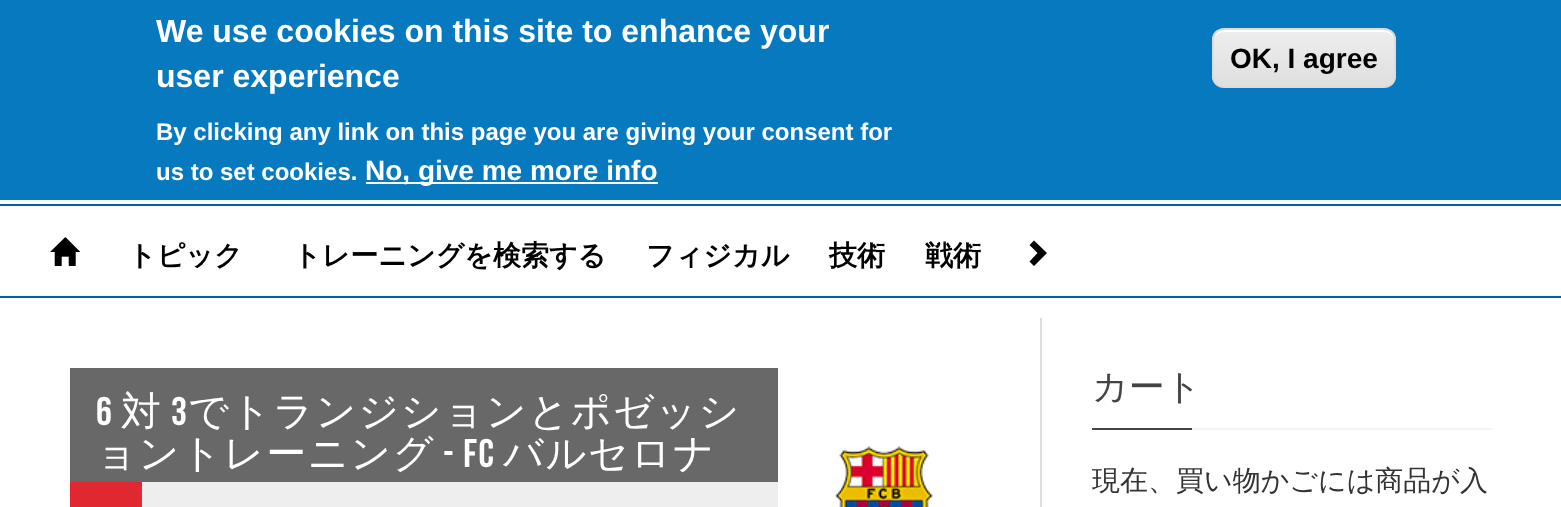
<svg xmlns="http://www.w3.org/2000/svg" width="1561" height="507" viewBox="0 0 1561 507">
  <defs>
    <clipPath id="clip1"><rect x="1212" y="28" width="184" height="60" rx="12"/></clipPath>
    <linearGradient id="g1" gradientUnits="userSpaceOnUse" x1="1304" y1="30" x2="1304" y2="86"><stop offset="0.05" stop-color="#ededed"/><stop offset="1" stop-color="#dfdfdf"/></linearGradient>
  </defs>
  <rect width="100%" height="100%" fill="#ffffff"/>
  <rect x="0" y="0" width="1561" height="200" fill="#0779bf"/>
  <text x="156" y="42" font-family="Liberation Sans" font-size="32" font-weight="bold" fill="#ffffff">We use cookies on this site to enhance your</text>
  <text x="156" y="87" font-family="Liberation Sans" font-size="32" font-weight="bold" fill="#ffffff">user experience</text>
  <text x="156" y="140" font-family="Liberation Sans" font-size="24" font-weight="bold" fill="#ffffff">By clicking any link on this page you are giving your consent for</text>
  <text x="156" y="180" font-family="Liberation Sans" font-size="24" font-weight="bold" fill="#ffffff">us to set cookies.</text>
  <rect x="366" y="182" width="292" height="2" fill="#ffffff"/>
  <text x="365" y="180" font-family="Liberation Sans" font-size="28" font-weight="bold" fill="#ffffff">No, give me more info</text>
  <g clip-path="url(#clip1)">
    <rect x="1212" y="30" width="184" height="56" fill="url(#g1)"/>
  </g>
  <path d="M1224 32H1384C1390 32 1394 36 1394 42V40C1394 34 1390 30 1384 30H1224C1218 30 1214 34 1214 40V42C1214 36 1218 32 1224 32Z" fill="#ffffff"/>
  <rect x="1213" y="29" width="182" height="58" rx="11" fill="none" stroke="#dcdcdc" stroke-width="2"/>
  <text x="1230" y="68" font-family="Liberation Sans" font-size="28" font-weight="bold" fill="#000000">OK, I agree</text>
  <rect x="0" y="204" width="1561" height="2" fill="#0060a9"/>
  <rect x="0" y="296" width="1561" height="2" fill="#0060a9"/>
  <image x="50" y="237" width="30" height="29" href="img1.png"/>
  <text x="128" y="265" font-family="WenQuanYi Zen Hei" font-size="28" font-weight="bold" fill="#000000">トピック</text>
  <text x="293" y="265" font-family="WenQuanYi Zen Hei" font-size="28" font-weight="bold" fill="#000000">トレーニングを検索する</text>
  <text x="646" y="265" font-family="WenQuanYi Zen Hei" font-size="28" font-weight="bold" fill="#000000">フィジカル</text>
  <text x="829" y="265" font-family="WenQuanYi Zen Hei" font-size="28" font-weight="bold" fill="#000000">技術</text>
  <text x="925" y="265" font-family="WenQuanYi Zen Hei" font-size="28" font-weight="bold" fill="#000000">戦術</text>
  <path d="M1047 253L1034 266L1029.5 261.5L1037.5 253L1029.5 245L1034 240.5Z" fill="#000000"/>
  <rect x="1040" y="318" width="2" height="189" fill="#dedede"/>
  <rect x="70" y="368" width="708" height="114" fill="#686868"/>
  <text x="96" y="425" font-family="Bebas Neue" font-size="40" letter-spacing="1.6" fill="#ffffff">6</text>
  <text x="121" y="425" font-family="WenQuanYi Zen Hei" font-size="40" font-weight="500" letter-spacing="1.6" fill="#ffffff">対</text>
  <text x="171" y="425" font-family="Bebas Neue" font-size="40" letter-spacing="1.6" fill="#ffffff">3</text>
  <text x="188" y="425" font-family="WenQuanYi Zen Hei" font-size="40" font-weight="500" letter-spacing="1.6" fill="#ffffff">でトランジションとポゼッシ</text>
  <text x="96" y="467" font-family="WenQuanYi Zen Hei" font-size="40" font-weight="500" letter-spacing="1.6" fill="#ffffff">ョントレーニング</text>
  <text x="443" y="467" font-family="Bebas Neue" font-size="40" letter-spacing="1.6" fill="#ffffff">- FC</text>
  <text x="503" y="467" font-family="WenQuanYi Zen Hei" font-size="40" font-weight="500" letter-spacing="1.6" fill="#ffffff">バルセロナ</text>
  <image x="835" y="446" width="98" height="61" href="img2.png"/>
  <rect x="70" y="482" width="72" height="25" fill="#e02831"/>
  <rect x="142" y="482" width="636" height="25" fill="#eeeeee"/>
  <rect x="1192" y="428" width="300" height="2" fill="#f5f5f5"/>
  <text x="1092" y="399" font-family="WenQuanYi Zen Hei" font-size="36" font-weight="500" fill="#444444">カート</text>
  <rect x="1092" y="428" width="100" height="2" fill="#444444"/>
  <text x="1092" y="490" font-family="WenQuanYi Zen Hei" font-size="28" font-weight="500" fill="#333333">現在、買い物かごには商品が入</text>
</svg>
